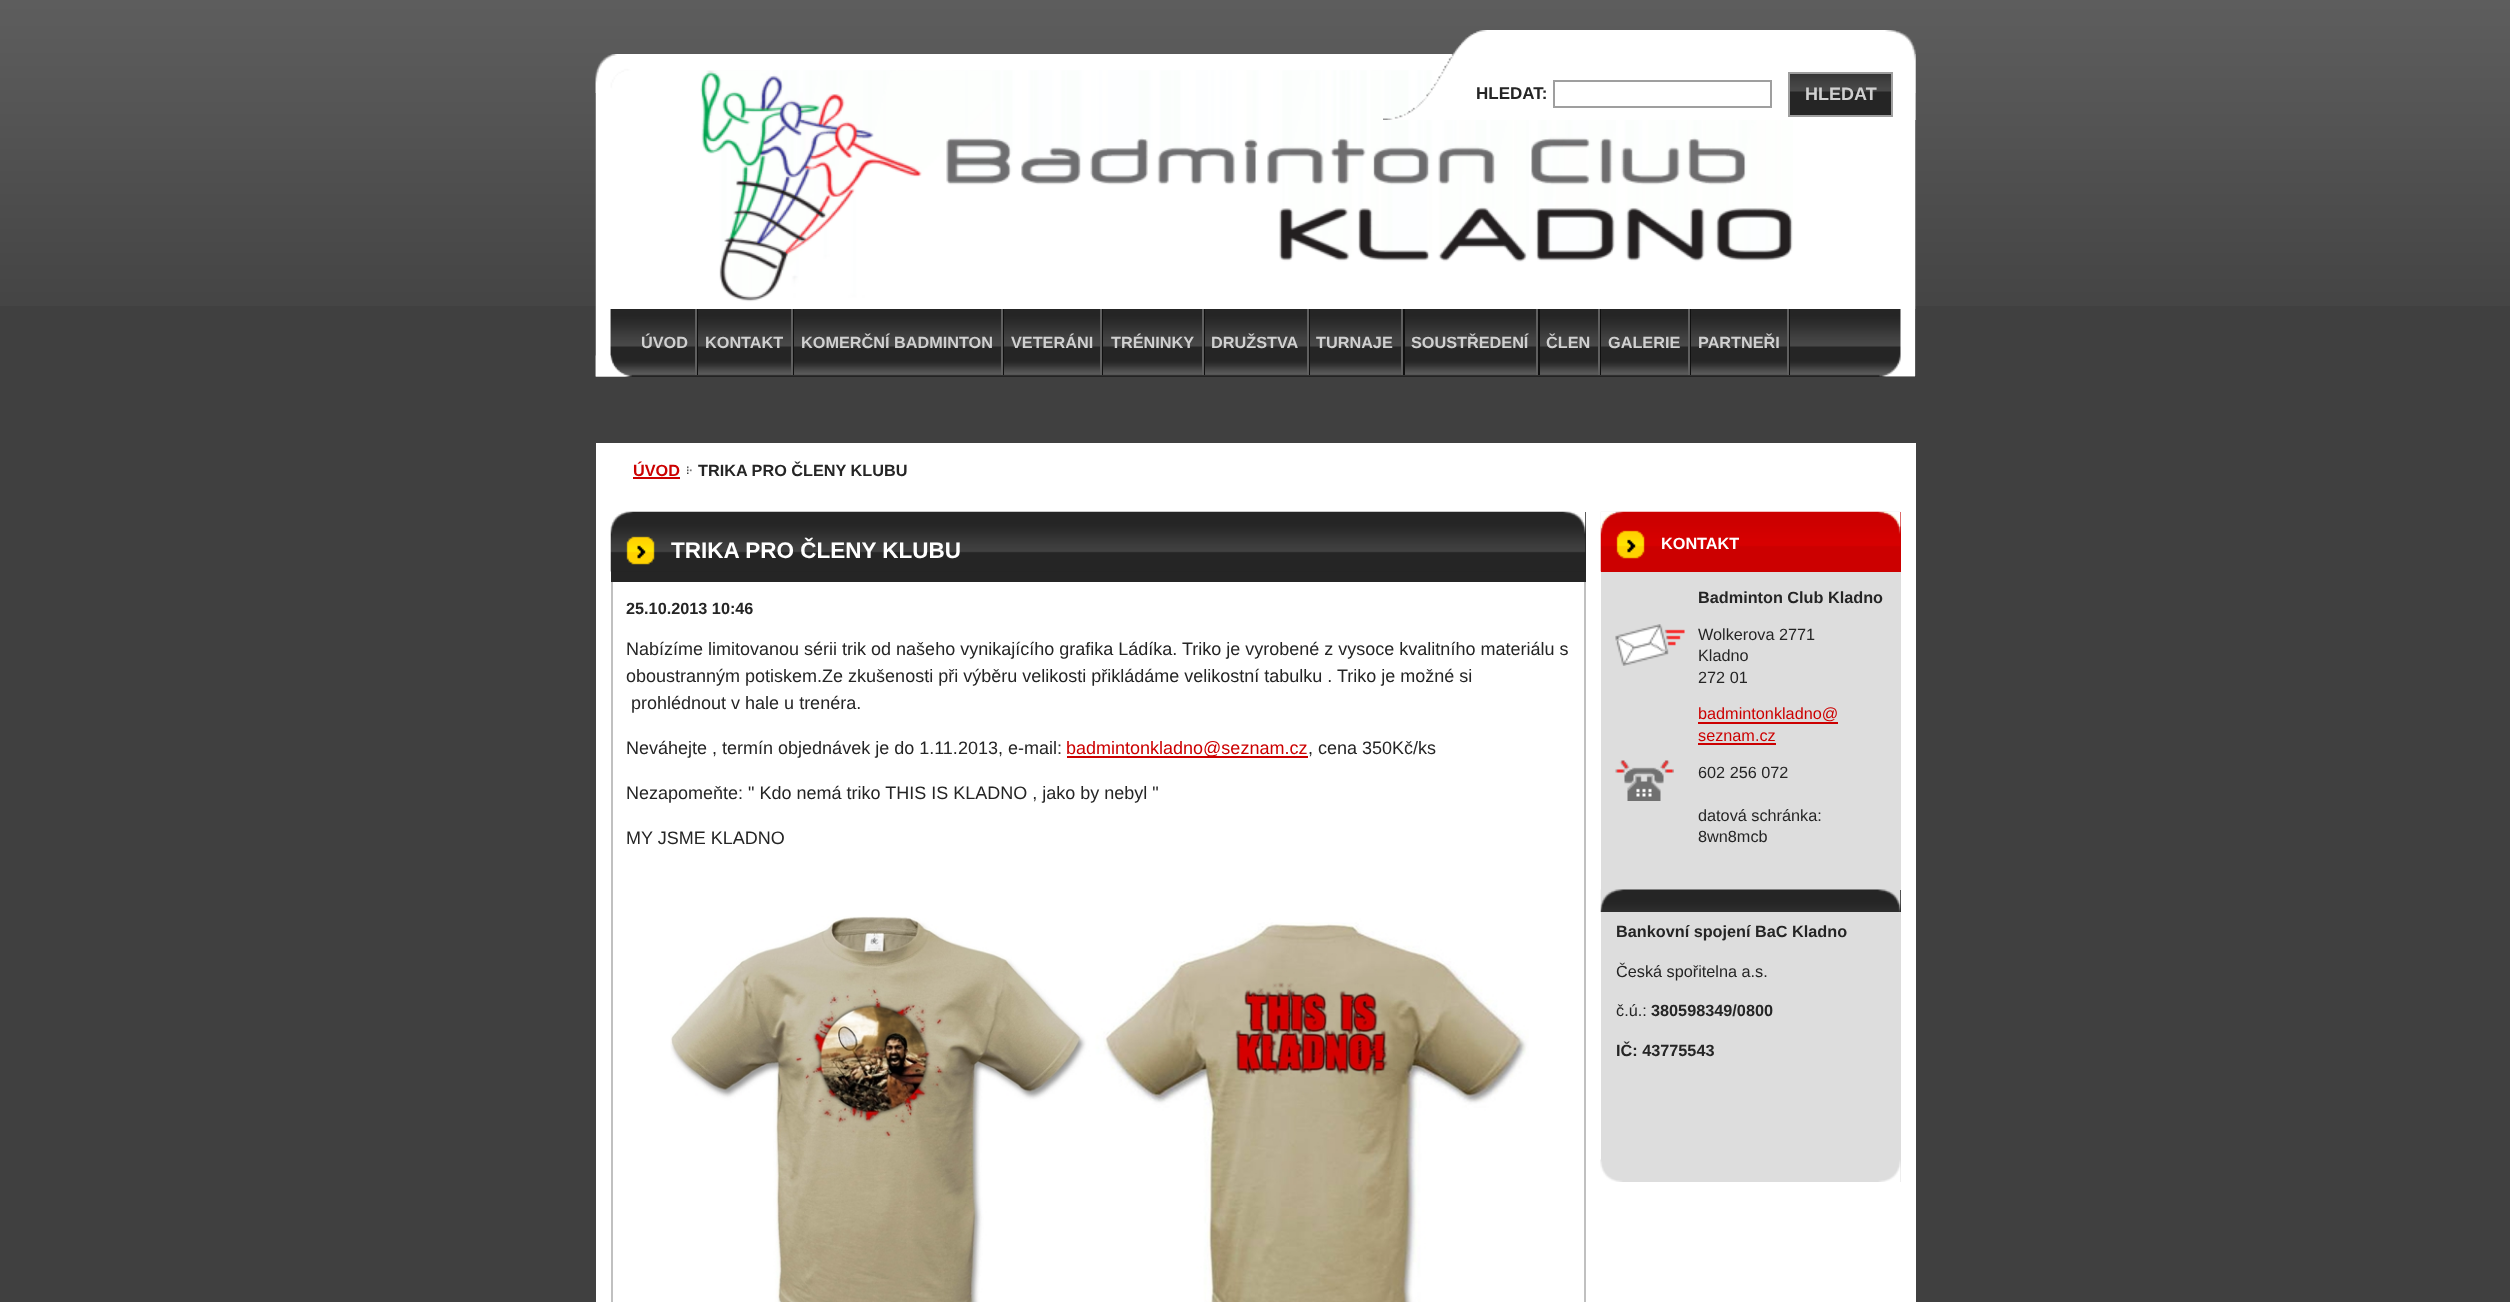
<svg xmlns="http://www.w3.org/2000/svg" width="2510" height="1302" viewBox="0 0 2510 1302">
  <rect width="100%" height="100%" fill="#404040"/>
  <image x="0" y="0" width="2510" height="306" href="img1.png"/>
  <image x="595" y="54" width="1321" height="255" href="img4.png"/>
  <image x="700" y="70" width="1093" height="232" href="img6.png"/>
  <image x="595" y="54" width="1321" height="39" href="img5.png"/>
  <image x="1383" y="30" width="533" height="90" href="img2.png"/>
  <text x="1476" y="99" font-family="Liberation Sans" font-size="17" font-weight="bold" fill="#252525">HLEDAT:</text>
  <rect x="1554" y="81" width="217" height="26" fill="none" stroke="#9f9f9f" stroke-width="2"/>
  <rect x="1790" y="91" width="101" height="24" fill="#252525"/>
  <image x="1790" y="74" width="101" height="18" href="img3.png"/>
  <rect x="1789" y="73" width="103" height="43" fill="none" stroke="#9f9f9f" stroke-width="2"/>
  <text x="1805" y="100" font-family="Liberation Sans" font-size="18" font-weight="bold" fill="#d0d0d0">HLEDAT</text>
  <rect x="596" y="309" width="1320" height="68" fill="#222222"/>
  <image x="595" y="309" width="1321" height="68" href="img7.png"/>
  <rect x="697" y="309" width="1" height="66" fill="#101010"/>
  <rect x="695" y="309" width="2" height="66" fill="#5f5f5f"/>
  <text x="641" y="348" font-family="Liberation Sans" font-size="16.25" font-weight="bold" fill="#d0d0d0">ÚVOD</text>
  <rect x="793" y="309" width="1" height="66" fill="#101010"/>
  <rect x="791" y="309" width="2" height="66" fill="#5f5f5f"/>
  <text x="705" y="348" font-family="Liberation Sans" font-size="16.25" font-weight="bold" fill="#d0d0d0">KONTAKT</text>
  <rect x="1003" y="309" width="1" height="66" fill="#101010"/>
  <rect x="1001" y="309" width="2" height="66" fill="#5f5f5f"/>
  <text x="801" y="348" font-family="Liberation Sans" font-size="16.25" font-weight="bold" fill="#d0d0d0">KOMERČNÍ BADMINTON</text>
  <rect x="1102" y="309" width="1" height="66" fill="#101010"/>
  <rect x="1100" y="309" width="2" height="66" fill="#5f5f5f"/>
  <text x="1011" y="348" font-family="Liberation Sans" font-size="16.25" font-weight="bold" fill="#d0d0d0">VETERÁNI</text>
  <rect x="1204" y="309" width="1" height="66" fill="#101010"/>
  <rect x="1202" y="309" width="2" height="66" fill="#5f5f5f"/>
  <text x="1111" y="348" font-family="Liberation Sans" font-size="16.25" font-weight="bold" fill="#d0d0d0">TRÉNINKY</text>
  <rect x="1309" y="309" width="1" height="66" fill="#101010"/>
  <rect x="1307" y="309" width="2" height="66" fill="#5f5f5f"/>
  <text x="1211" y="348" font-family="Liberation Sans" font-size="16.25" font-weight="bold" fill="#d0d0d0">DRUŽSTVA</text>
  <rect x="1403" y="309" width="2" height="66" fill="#101010"/>
  <rect x="1401" y="309" width="2" height="66" fill="#5f5f5f"/>
  <text x="1316" y="348" font-family="Liberation Sans" font-size="16.25" font-weight="bold" fill="#d0d0d0">TURNAJE</text>
  <rect x="1538" y="309" width="2" height="66" fill="#101010"/>
  <rect x="1536" y="309" width="2" height="66" fill="#5f5f5f"/>
  <text x="1411" y="348" font-family="Liberation Sans" font-size="16.25" font-weight="bold" fill="#d0d0d0">SOUSTŘEDENÍ</text>
  <rect x="1600" y="309" width="1" height="66" fill="#101010"/>
  <rect x="1598" y="309" width="2" height="66" fill="#5f5f5f"/>
  <text x="1546" y="348" font-family="Liberation Sans" font-size="16.25" font-weight="bold" fill="#d0d0d0">ČLEN</text>
  <rect x="1690" y="309" width="1" height="66" fill="#101010"/>
  <rect x="1688" y="309" width="2" height="66" fill="#5f5f5f"/>
  <text x="1608" y="348" font-family="Liberation Sans" font-size="16.25" font-weight="bold" fill="#d0d0d0">GALERIE</text>
  <rect x="1789" y="309" width="1" height="66" fill="#101010"/>
  <rect x="1787" y="309" width="2" height="66" fill="#5f5f5f"/>
  <text x="1698" y="348" font-family="Liberation Sans" font-size="16.25" font-weight="bold" fill="#d0d0d0">PARTNEŘI</text>
  <image x="595" y="355" width="35" height="22" href="img8.png"/>
  <rect x="596" y="443" width="1320" height="859" fill="#ffffff"/>
  <text x="633" y="476" font-family="Liberation Sans" font-size="16.25" font-weight="bold" fill="#cc0000">ÚVOD</text>
  <rect x="633" y="477" width="47" height="2" fill="#cc0000"/>
  <image x="687" y="466" width="5" height="8" href="img9.png"/>
  <text x="698" y="476" font-family="Liberation Sans" font-size="16.25" font-weight="bold" fill="#252525">TRIKA PRO ČLENY KLUBU</text>
  <rect x="1585" y="512" width="1" height="22" fill="#252525"/>
  <image x="610" y="511" width="976" height="23" href="img10.png"/>
  <rect x="1584" y="582" width="2" height="720" fill="#c0c0c0"/>
  <rect x="611" y="582" width="2" height="720" fill="#c0c0c0"/>
  <rect x="611" y="534" width="975" height="48" fill="#252525"/>
  <image x="610" y="534" width="976" height="38" href="img11.png"/>
  <text x="671" y="558" font-family="Liberation Sans" font-size="22.5" font-weight="bold" fill="#ffffff">TRIKA PRO ČLENY KLUBU</text>
  <text x="626" y="614" font-family="Liberation Sans" font-size="16.25" font-weight="bold" fill="#252525">25.10.2013 10:46</text>
  <text x="626" y="655" font-family="Liberation Sans" font-size="18" fill="#252525">Nabízíme limitovanou sérii trik od našeho vynikajícího grafika Ládíka. Triko je vyrobené z vysoce kvalitního materiálu s</text>
  <text x="626" y="682" font-family="Liberation Sans" font-size="18" fill="#252525">oboustranným potiskem.Ze zkušenosti při výběru velikosti přikládáme velikostní tabulku . Triko je možné si</text>
  <text x="631" y="709" font-family="Liberation Sans" font-size="18" fill="#252525">prohlédnout v hale u trenéra.</text>
  <text x="626" y="754" font-family="Liberation Sans" font-size="18" fill="#252525">Neváhejte , termín objednávek je do 1.11.2013, e-mail:</text>
  <rect x="1067" y="756" width="241" height="2" fill="#cc0000"/>
  <text x="1066" y="754" font-family="Liberation Sans" font-size="18" fill="#cc0000">badmintonkladno@seznam.cz</text>
  <text x="1308" y="754" font-family="Liberation Sans" font-size="18" fill="#252525">, cena 350Kč/ks</text>
  <text x="626" y="799" font-family="Liberation Sans" font-size="18" fill="#252525">Nezapomeňte: " Kdo nemá triko THIS IS KLADNO , jako by nebyl "</text>
  <text x="626" y="844" font-family="Liberation Sans" font-size="18" fill="#252525">MY JSME KLADNO</text>
  <image x="670" y="916" width="859" height="386" href="img12.png"/>
  <rect x="1601" y="572" width="300" height="610" fill="#dddddd"/>
  <image x="1600" y="1159" width="301" height="23" href="img13.png"/>
  <rect x="1601" y="512" width="300" height="60" fill="#cc0000"/>
  <image x="1600" y="511" width="301" height="61" href="img15.png"/>
  <image x="1600" y="511" width="301" height="18" href="img14.png"/>
  <text x="1661" y="549" font-family="Liberation Sans" font-size="16.25" font-weight="bold" fill="#ffffff">KONTAKT</text>
  <text x="1698" y="603" font-family="Liberation Sans" font-size="16.25" font-weight="bold" fill="#252525">Badminton Club Kladno</text>
  <image x="1615" y="624" width="70" height="42" href="img16.png"/>
  <text x="1698" y="640" font-family="Liberation Sans" font-size="16.25" fill="#252525">Wolkerova 2771</text>
  <text x="1698" y="661" font-family="Liberation Sans" font-size="16.25" fill="#252525">Kladno</text>
  <text x="1698" y="683" font-family="Liberation Sans" font-size="16.25" fill="#252525">272 01</text>
  <text x="1698" y="719" font-family="Liberation Sans" font-size="16.25" fill="#cc0000">badmintonkladno@</text>
  <rect x="1698" y="722" width="140" height="2" fill="#cc0000"/>
  <text x="1698" y="741" font-family="Liberation Sans" font-size="16.25" fill="#cc0000">seznam.cz</text>
  <rect x="1698" y="743" width="78" height="2" fill="#cc0000"/>
  <image x="1615" y="760" width="59" height="41" href="img17.png"/>
  <text x="1698" y="778" font-family="Liberation Sans" font-size="16.25" fill="#252525">602 256 072</text>
  <text x="1698" y="821" font-family="Liberation Sans" font-size="16.25" fill="#252525">datová schránka:</text>
  <text x="1698" y="842" font-family="Liberation Sans" font-size="16.25" fill="#252525">8wn8mcb</text>
  <rect x="1900" y="890" width="1" height="22" fill="#252525"/>
  <image x="1600" y="889" width="301" height="23" href="img18.png"/>
  <text x="1616" y="937" font-family="Liberation Sans" font-size="16.25" font-weight="bold" fill="#252525">Bankovní spojení BaC Kladno</text>
  <text x="1616" y="977" font-family="Liberation Sans" font-size="16.25" fill="#252525">Česká spořitelna a.s.</text>
  <text x="1616" y="1016" font-family="Liberation Sans" font-size="16.25" fill="#252525">č.ú.:</text>
  <text x="1651" y="1016" font-family="Liberation Sans" font-size="16.25" font-weight="bold" fill="#252525">380598349/0800</text>
  <text x="1616" y="1056" font-family="Liberation Sans" font-size="16.25" font-weight="bold" fill="#252525">IČ: 43775543</text>
</svg>
